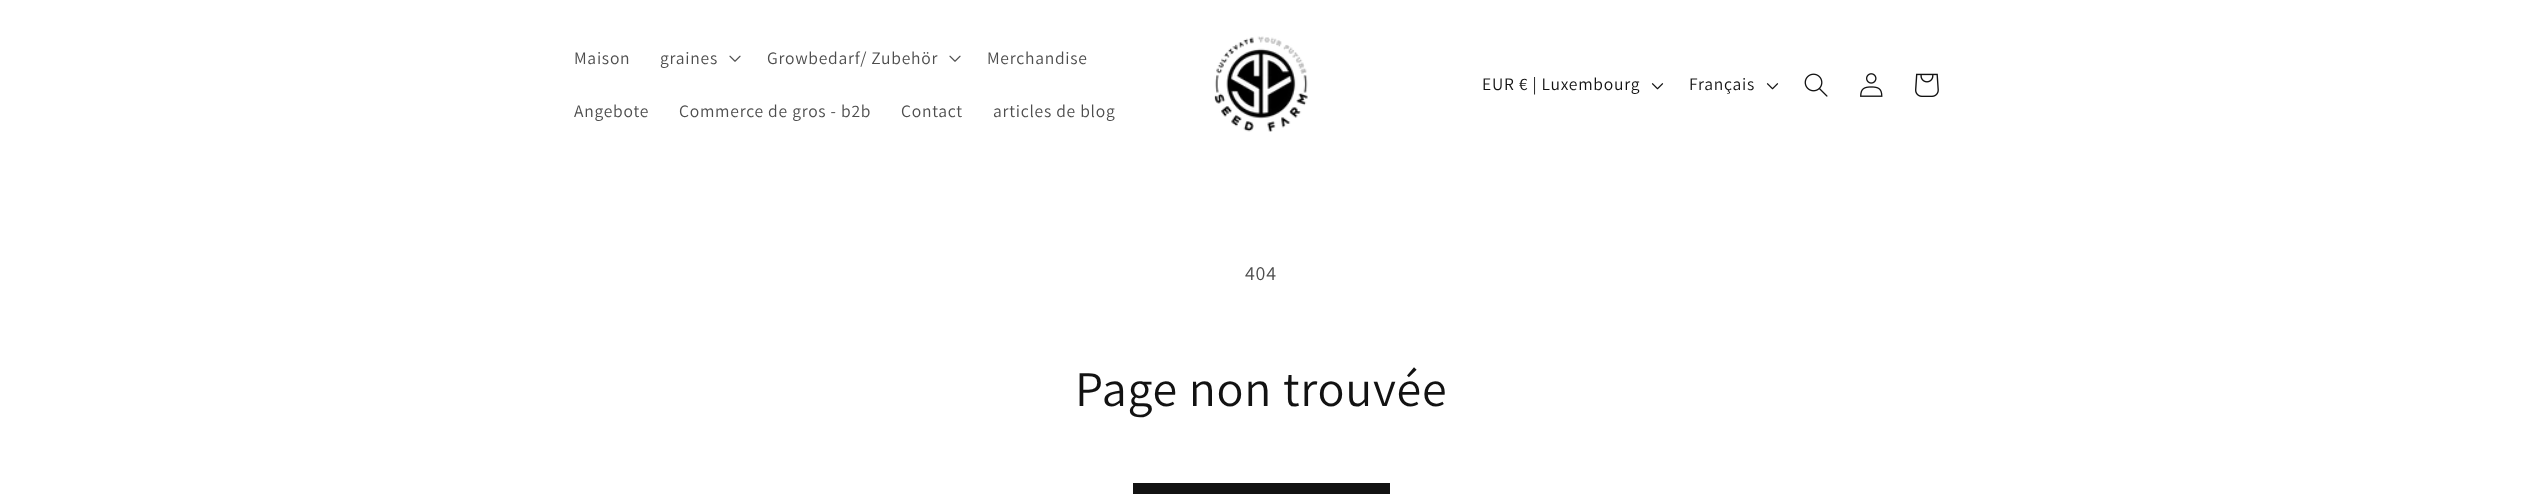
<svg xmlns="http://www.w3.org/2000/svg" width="2522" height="494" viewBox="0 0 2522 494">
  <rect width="100%" height="100%" fill="#ffffff"/>
  <text x="574" y="64" font-family="Assistant" font-size="17.5" letter-spacing="0.75" fill="#4d4d4d">Maison</text>
  <text x="660" y="64" font-family="Assistant" font-size="17.5" letter-spacing="0.75" fill="#4d4d4d">graines</text>
  <image x="729" y="55" width="12" height="7" href="img1.png"/>
  <text x="767" y="64" font-family="Assistant" font-size="17.5" letter-spacing="0.75" fill="#4d4d4d">Growbedarf/ Zubehör</text>
  <image x="949" y="55" width="12" height="7" href="img1.png"/>
  <text x="987" y="64" font-family="Assistant" font-size="17.5" letter-spacing="0.75" fill="#4d4d4d">Merchandise</text>
  <text x="574" y="117" font-family="Assistant" font-size="17.5" letter-spacing="0.75" fill="#4d4d4d">Angebote</text>
  <text x="679" y="117" font-family="Assistant" font-size="17.5" letter-spacing="0.75" fill="#4d4d4d">Commerce de gros - b2b</text>
  <text x="901" y="117" font-family="Assistant" font-size="17.5" letter-spacing="0.75" fill="#4d4d4d">Contact</text>
  <text x="993" y="117" font-family="Assistant" font-size="17.5" letter-spacing="0.75" fill="#4d4d4d">articles de blog</text>
  <image x="1214" y="36" width="94" height="96" href="img2.png"/>
  <text x="1482" y="90" font-family="Assistant" font-size="17.5" letter-spacing="0.75" fill="#121212">EUR € | Luxembourg</text>
  <image x="1651" y="83" width="13" height="7" href="img3.png"/>
  <text x="1689" y="90" font-family="Assistant" font-size="17.5" letter-spacing="0.75" fill="#121212">Français</text>
  <image x="1766" y="83" width="13" height="7" href="img3.png"/>
  <image x="1804" y="73" width="24" height="24" href="img4.png"/>
  <image x="1860" y="73" width="23" height="24" href="img5.png"/>
  <image x="1915" y="73" width="24" height="24" href="img6.png"/>
  <text x="1245" y="280" font-family="Assistant" font-size="20" letter-spacing="0.75" fill="#4d4d4d">404</text>
  <text x="1075" y="406" font-family="Assistant" font-size="50" letter-spacing="0.75" fill="#121212">Page non trouvée</text>
  <rect x="1133" y="483" width="257" height="11" fill="#121212"/>
</svg>
